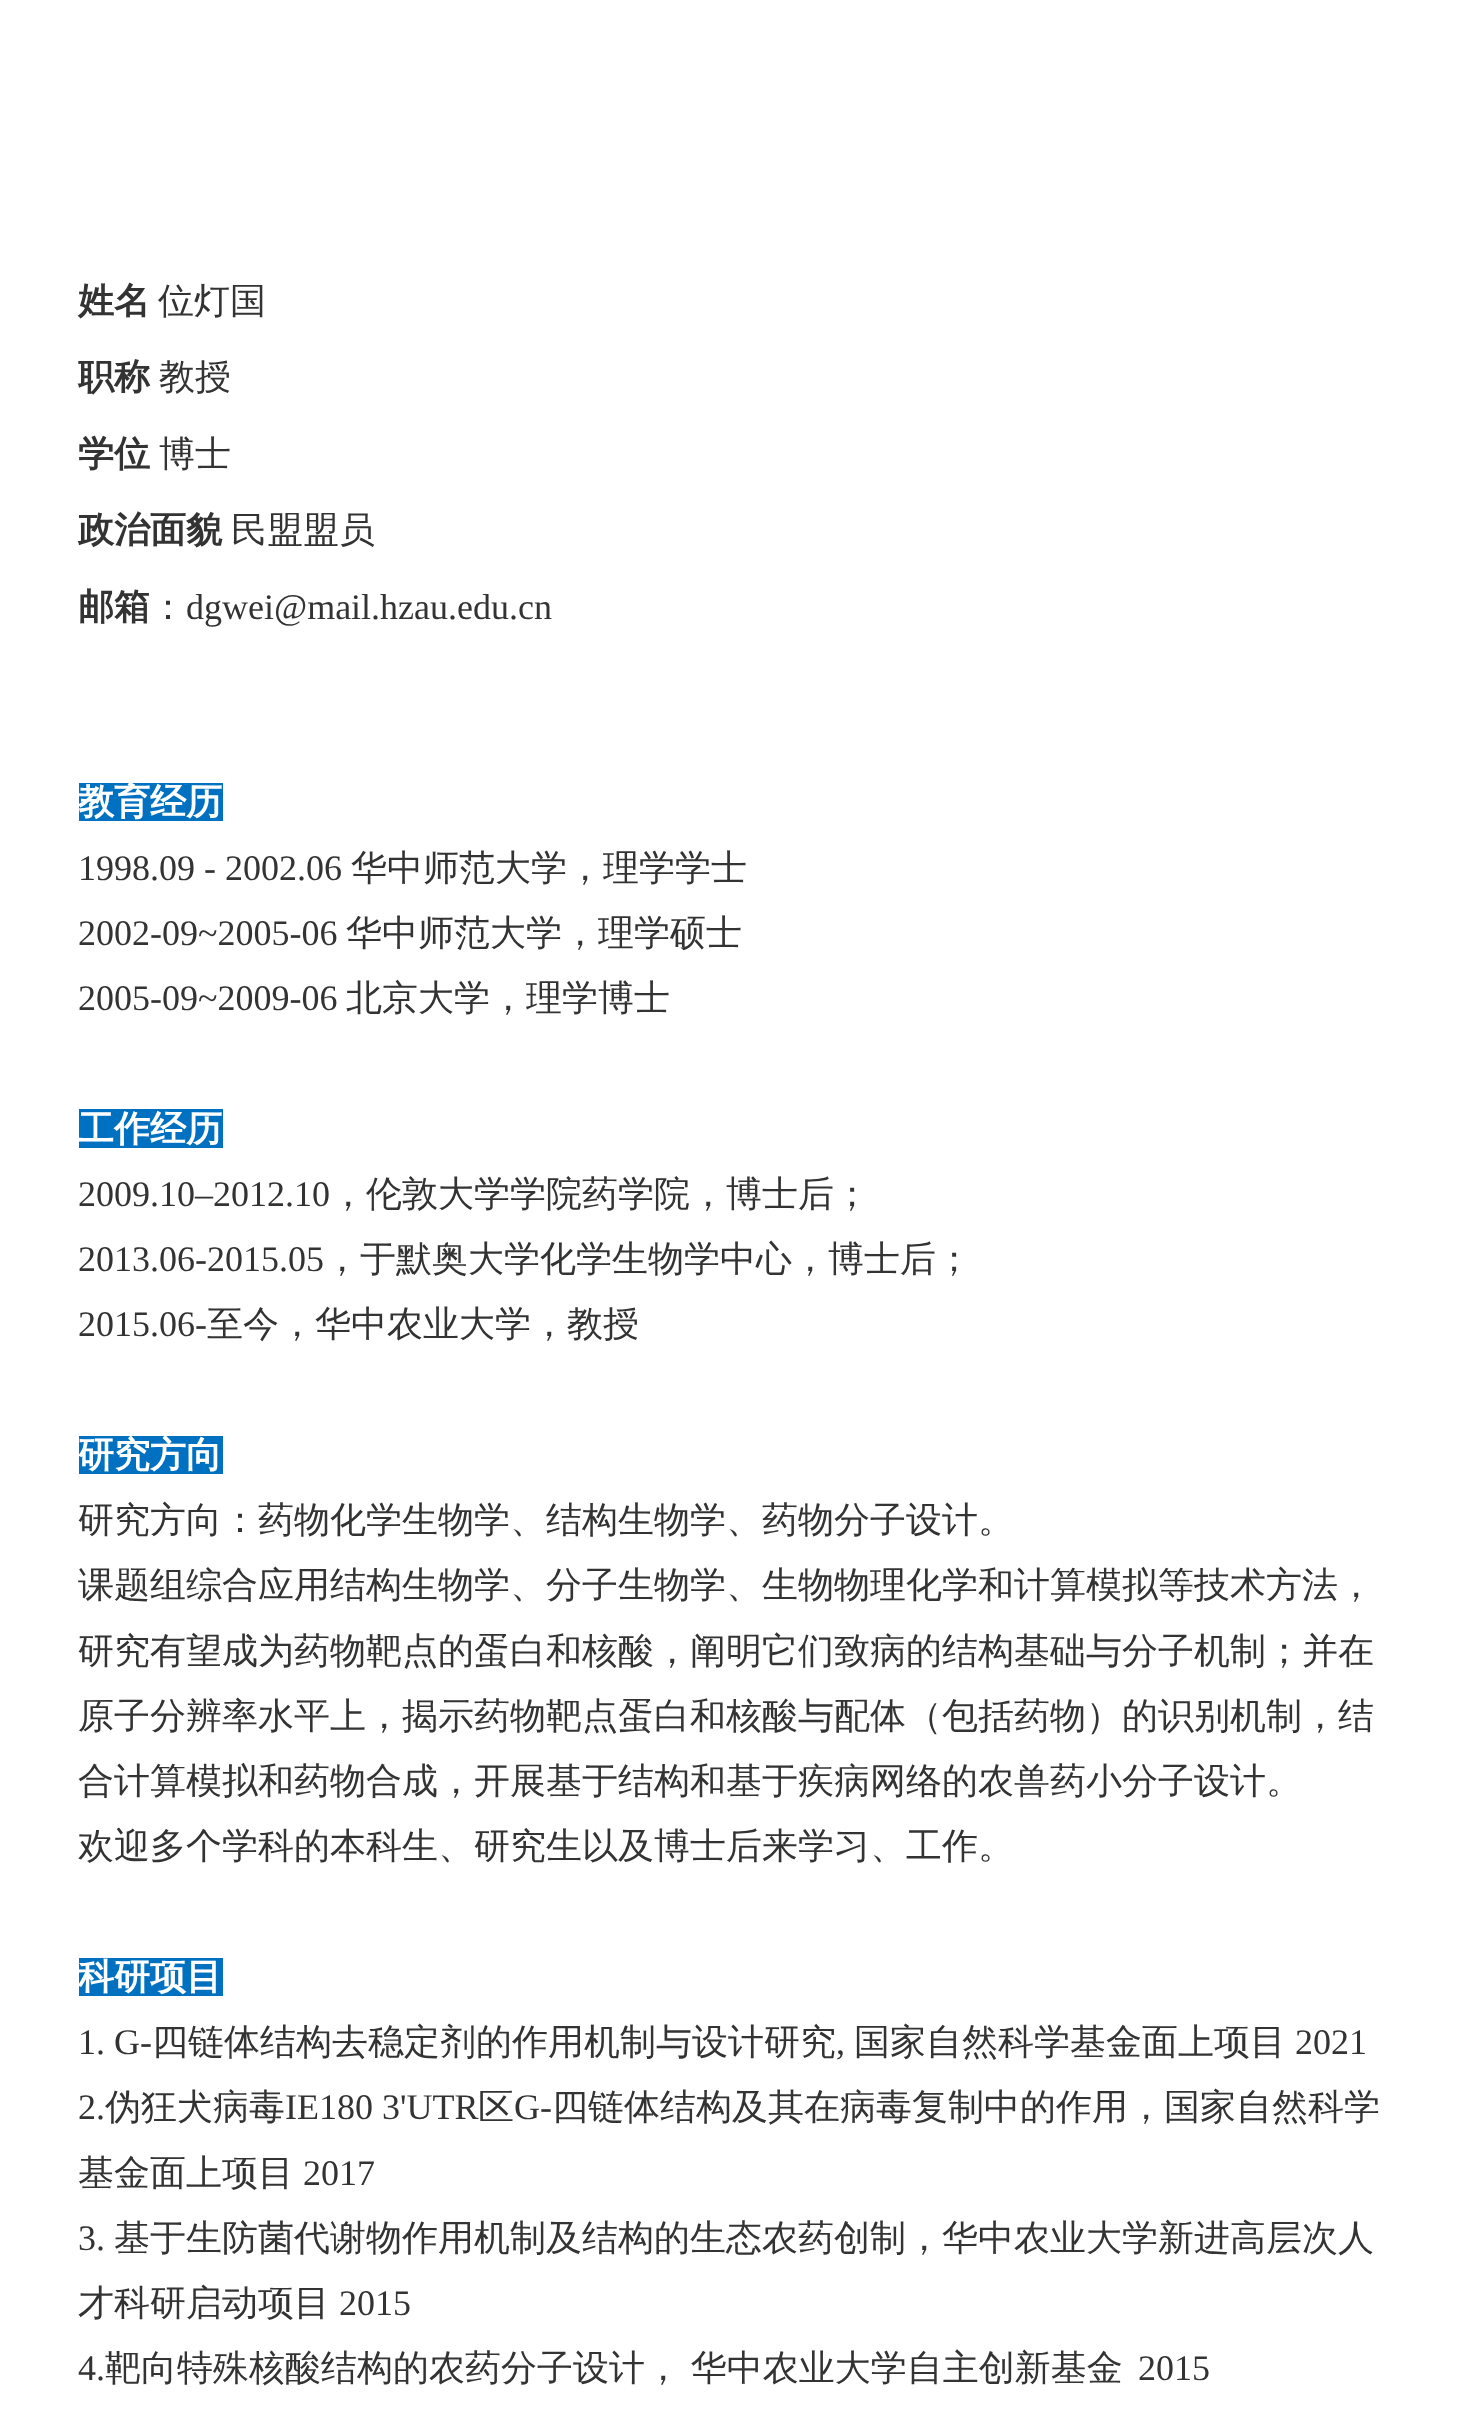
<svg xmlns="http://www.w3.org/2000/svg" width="1473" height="2420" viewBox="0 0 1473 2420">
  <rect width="100%" height="100%" fill="#ffffff"/>
  <text x="78" y="313" font-family="WenQuanYi Zen Hei" font-size="36" font-weight="bold" fill="#333333">姓名</text>
  <text x="158" y="313" font-family="WenQuanYi Zen Hei" font-size="36" font-weight="500" fill="#333333">位灯国</text>
  <text x="78" y="389" font-family="WenQuanYi Zen Hei" font-size="36" font-weight="bold" fill="#333333">职称</text>
  <text x="159" y="389" font-family="WenQuanYi Zen Hei" font-size="36" font-weight="500" fill="#333333">教授</text>
  <text x="78" y="466" font-family="WenQuanYi Zen Hei" font-size="36" font-weight="bold" fill="#333333">学位</text>
  <text x="159" y="466" font-family="WenQuanYi Zen Hei" font-size="36" font-weight="500" fill="#333333">博士</text>
  <text x="78" y="542" font-family="WenQuanYi Zen Hei" font-size="36" font-weight="bold" fill="#333333">政治面貌</text>
  <text x="231" y="542" font-family="WenQuanYi Zen Hei" font-size="36" font-weight="500" fill="#333333">民盟盟员</text>
  <text x="78" y="619" font-family="WenQuanYi Zen Hei" font-size="36" font-weight="bold" fill="#333333">邮箱</text>
  <text x="150" y="619" font-family="WenQuanYi Zen Hei" font-size="36" font-weight="500" fill="#333333">：</text>
  <text x="186" y="619" font-family="Liberation Serif" font-size="36" fill="#333333">dgwei@mail.hzau.edu.cn</text>
  <rect x="79" y="783" width="144" height="38" fill="#0070c0"/>
  <text x="78" y="814" font-family="WenQuanYi Zen Hei" font-size="36" font-weight="bold" fill="#ffffff">教育经历</text>
  <text x="78" y="880" font-family="Liberation Serif" font-size="36" fill="#333333">1998.09 - 2002.06</text>
  <text x="351" y="880" font-family="WenQuanYi Zen Hei" font-size="36" font-weight="500" fill="#333333">华中师范大学，理学学士</text>
  <text x="78" y="945" font-family="Liberation Serif" font-size="36" fill="#333333">2002-09~2005-06</text>
  <text x="346" y="945" font-family="WenQuanYi Zen Hei" font-size="36" font-weight="500" fill="#333333">华中师范大学，理学硕士</text>
  <text x="78" y="1010" font-family="Liberation Serif" font-size="36" fill="#333333">2005-09~2009-06</text>
  <text x="346" y="1010" font-family="WenQuanYi Zen Hei" font-size="36" font-weight="500" fill="#333333">北京大学，理学博士</text>
  <rect x="79" y="1109" width="144" height="39" fill="#0070c0"/>
  <text x="78" y="1141" font-family="WenQuanYi Zen Hei" font-size="36" font-weight="bold" fill="#ffffff">工作经历</text>
  <text x="78" y="1206" font-family="Liberation Serif" font-size="36" fill="#333333">2009.10–2012.10</text>
  <text x="330" y="1206" font-family="WenQuanYi Zen Hei" font-size="36" font-weight="500" fill="#333333">，伦敦大学学院药学院，博士后；</text>
  <text x="78" y="1271" font-family="Liberation Serif" font-size="36" fill="#333333">2013.06-2015.05</text>
  <text x="324" y="1271" font-family="WenQuanYi Zen Hei" font-size="36" font-weight="500" fill="#333333">，于默奥大学化学生物学中心，博士后；</text>
  <text x="78" y="1336" font-family="Liberation Serif" font-size="36" fill="#333333">2015.06-</text>
  <text x="207" y="1336" font-family="WenQuanYi Zen Hei" font-size="36" font-weight="500" fill="#333333">至今，华中农业大学，教授</text>
  <rect x="79" y="1436" width="144" height="38" fill="#0070c0"/>
  <text x="78" y="1467" font-family="WenQuanYi Zen Hei" font-size="36" font-weight="bold" fill="#ffffff">研究方向</text>
  <text x="78" y="1532" font-family="WenQuanYi Zen Hei" font-size="36" font-weight="500" fill="#333333">研究方向：药物化学生物学、结构生物学、药物分子设计。</text>
  <text x="78" y="1597" font-family="WenQuanYi Zen Hei" font-size="36" font-weight="500" fill="#333333">课题组综合应用结构生物学、分子生物学、生物物理化学和计算模拟等技术方法，</text>
  <text x="78" y="1663" font-family="WenQuanYi Zen Hei" font-size="36" font-weight="500" fill="#333333">研究有望成为药物靶点的蛋白和核酸，阐明它们致病的结构基础与分子机制；并在</text>
  <text x="78" y="1728" font-family="WenQuanYi Zen Hei" font-size="36" font-weight="500" fill="#333333">原子分辨率水平上，揭示药物靶点蛋白和核酸与配体（包括药物）的识别机制，结</text>
  <text x="78" y="1793" font-family="WenQuanYi Zen Hei" font-size="36" font-weight="500" fill="#333333">合计算模拟和药物合成，开展基于结构和基于疾病网络的农兽药小分子设计。</text>
  <text x="78" y="1858" font-family="WenQuanYi Zen Hei" font-size="36" font-weight="500" fill="#333333">欢迎多个学科的本科生、研究生以及博士后来学习、工作。</text>
  <rect x="79" y="1958" width="144" height="38" fill="#0070c0"/>
  <text x="78" y="1989" font-family="WenQuanYi Zen Hei" font-size="36" font-weight="bold" fill="#ffffff">科研项目</text>
  <text x="78" y="2054" font-family="Liberation Serif" font-size="36" fill="#333333">1. G-</text>
  <text x="152" y="2054" font-family="WenQuanYi Zen Hei" font-size="36" font-weight="500" fill="#333333">四链体结构去稳定剂的作用机制与设计研究</text>
  <text x="836" y="2054" font-family="Liberation Serif" font-size="36" fill="#333333">,</text>
  <text x="854" y="2054" font-family="WenQuanYi Zen Hei" font-size="36" font-weight="500" fill="#333333">国家自然科学基金面上项目</text>
  <text x="1295" y="2054" font-family="Liberation Serif" font-size="36" fill="#333333">2021</text>
  <text x="78" y="2119" font-family="Liberation Serif" font-size="36" fill="#333333">2.</text>
  <text x="105" y="2119" font-family="WenQuanYi Zen Hei" font-size="36" font-weight="500" fill="#333333">伪狂犬病毒</text>
  <text x="285" y="2119" font-family="Liberation Serif" font-size="36" fill="#333333">IE180 3'UTR</text>
  <text x="478" y="2119" font-family="WenQuanYi Zen Hei" font-size="36" font-weight="500" fill="#333333">区</text>
  <text x="514" y="2119" font-family="Liberation Serif" font-size="36" fill="#333333">G-</text>
  <text x="552" y="2119" font-family="WenQuanYi Zen Hei" font-size="36" font-weight="500" fill="#333333">四链体结构及其在病毒复制中的作用，国家自然科学</text>
  <text x="78" y="2185" font-family="WenQuanYi Zen Hei" font-size="36" font-weight="500" fill="#333333">基金面上项目</text>
  <text x="303" y="2185" font-family="Liberation Serif" font-size="36" fill="#333333">2017</text>
  <text x="78" y="2250" font-family="Liberation Serif" font-size="36" fill="#333333">3.</text>
  <text x="114" y="2250" font-family="WenQuanYi Zen Hei" font-size="36" font-weight="500" fill="#333333">基于生防菌代谢物作用机制及结构的生态农药创制，华中农业大学新进高层次人</text>
  <text x="78" y="2315" font-family="WenQuanYi Zen Hei" font-size="36" font-weight="500" fill="#333333">才科研启动项目</text>
  <text x="339" y="2315" font-family="Liberation Serif" font-size="36" fill="#333333">2015</text>
  <text x="78" y="2380" font-family="Liberation Serif" font-size="36" fill="#333333">4.</text>
  <text x="105" y="2380" word-spacing="-1" font-family="WenQuanYi Zen Hei" font-size="36" font-weight="500" fill="#333333">靶向特殊核酸结构的农药分子设计， 华中农业大学自主创新基金</text>
  <text x="1138" y="2380" font-family="Liberation Serif" font-size="36" fill="#333333">2015</text>
</svg>
